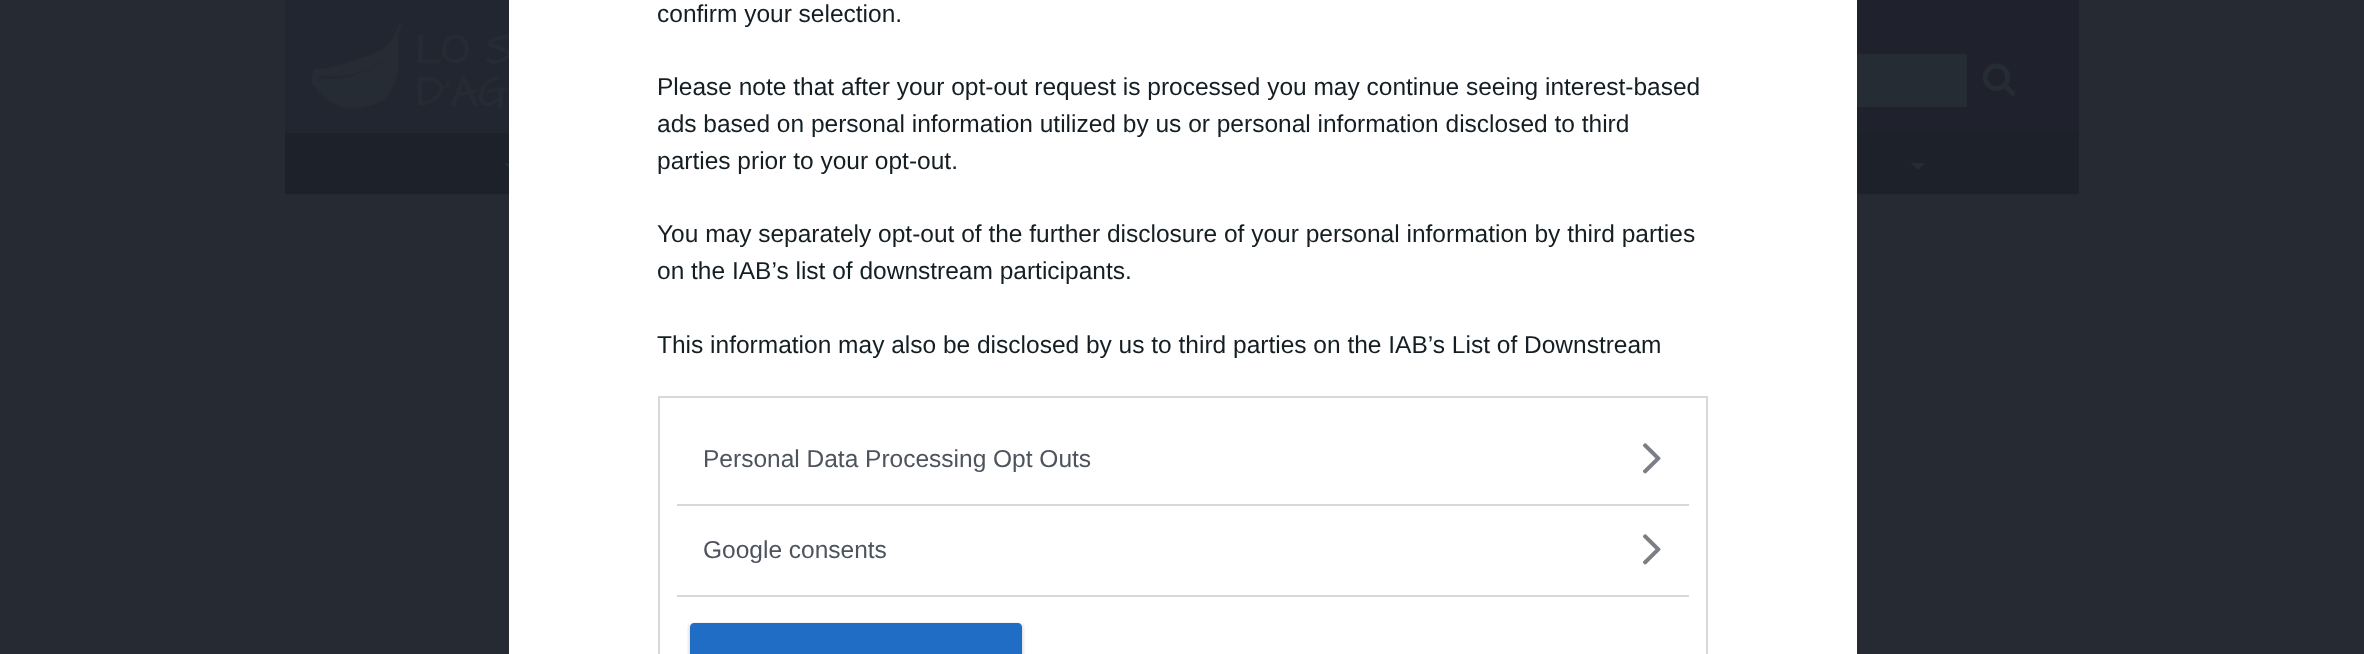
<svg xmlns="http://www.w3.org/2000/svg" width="2364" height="654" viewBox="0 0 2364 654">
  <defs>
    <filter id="blur1" x="-50%" y="-200%" width="200%" height="500%"><feGaussianBlur stdDeviation="1"/></filter>
  </defs>
  <rect width="100%" height="100%" fill="#262b33"/>
  <rect x="285" y="0" width="224" height="133" fill="#222630"/>
  <image x="311" y="22" width="198" height="87" href="img1.png"/>
  <rect x="1857" y="0" width="222" height="133" fill="#1f222d"/>
  <rect x="1857" y="54" width="110" height="53" fill="#262c34"/>
  <image x="1982" y="63" width="34" height="33" href="img2.png"/>
  <rect x="285" y="133" width="1794" height="61" fill="#1c212a"/>
  <path d="M504 163H518L511 170Z" fill="#262c34"/>
  <path d="M1911 163H1925L1918 170Z" fill="#262c34"/>
  <rect x="509" y="0" width="1348" height="654" fill="#ffffff"/>
  <text x="657" y="22" font-family="Liberation Sans" font-size="24.5" fill="#141e23">confirm your selection.</text>
  <text x="657" y="95" font-family="Liberation Sans" font-size="24.5" fill="#141e23">Please note that after your opt-out request is processed you may continue seeing interest-based</text>
  <text x="657" y="132" font-family="Liberation Sans" font-size="24.5" fill="#141e23">ads based on personal information utilized by us or personal information disclosed to third</text>
  <text x="657" y="169" font-family="Liberation Sans" font-size="24.5" fill="#141e23">parties prior to your opt-out.</text>
  <text x="657" y="242" font-family="Liberation Sans" font-size="24.5" fill="#141e23">You may separately opt-out of the further disclosure of your personal information by third parties</text>
  <text x="657" y="279" font-family="Liberation Sans" font-size="24.5" fill="#141e23">on the IAB’s list of downstream participants.</text>
  <text x="657" y="353" font-family="Liberation Sans" font-size="24.5" fill="#141e23">This information may also be disclosed by us to third parties on the IAB’s List of Downstream</text>
  <rect x="659" y="397" width="1048" height="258" fill="none" stroke="#d8d8d8" stroke-width="2"/>
  <rect x="677" y="504" width="1012" height="2" fill="#d8d8d8"/>
  <text x="703" y="467" font-family="Liberation Sans" font-size="24.5" fill="#4d545d">Personal Data Processing Opt Outs</text>
  <image x="1643" y="443" width="18" height="31" href="img3.png"/>
  <rect x="677" y="595" width="1012" height="2" fill="#d8d8d8"/>
  <text x="703" y="558" font-family="Liberation Sans" font-size="24.5" fill="#4d545d">Google consents</text>
  <image x="1643" y="534" width="18" height="31" href="img3.png"/>
  <rect x="688" y="623" width="336" height="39" rx="5" fill="#000000" fill-opacity="0.1" filter="url(#blur1)"/>
  <path d="M694 623H1018C1020 623 1022 625 1022 627V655H690V627C690 625 692 623 694 623Z" fill="#206dc5"/>
</svg>
